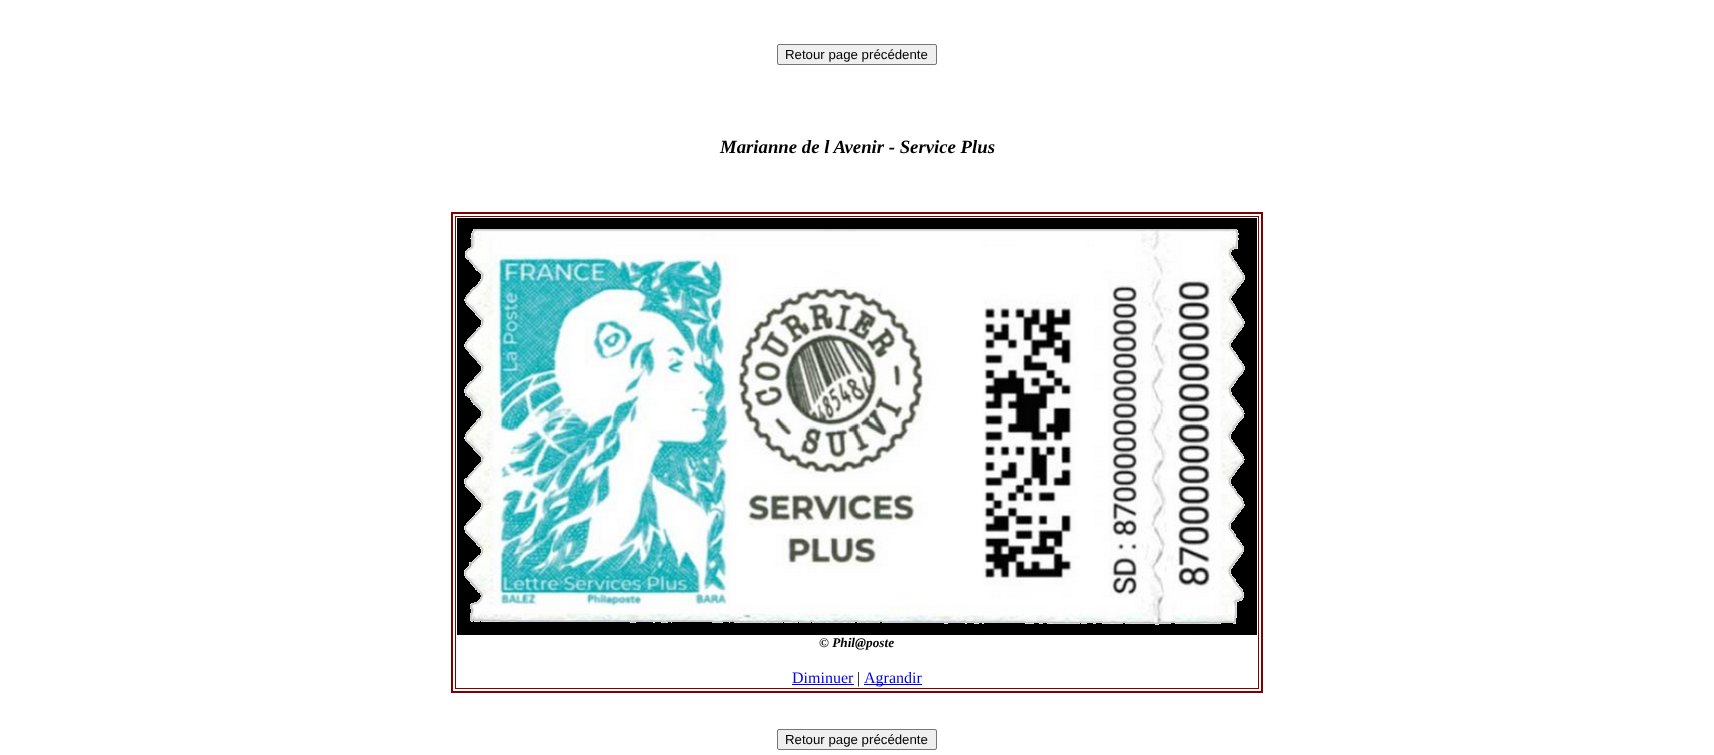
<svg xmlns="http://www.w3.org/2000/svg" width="1714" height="755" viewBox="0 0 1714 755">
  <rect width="100%" height="100%" fill="#ffffff"/>
  <rect x="777.5" y="44.5" width="159" height="20" rx="1.5" fill="#efefef" stroke="#767676"/>
  <text x="785" y="59" font-family="Liberation Sans" font-size="13.25" fill="#000000">Retour page précédente</text>
  <text x="720" y="153" font-family="Liberation Serif" font-size="18.75" font-weight="bold" font-style="italic" fill="#000000">Marianne de l Avenir - Service Plus</text>
  <rect x="452" y="213" width="810" height="479" fill="none" stroke="#800000" stroke-width="2"/>
  <rect x="455.5" y="216.5" width="803" height="472" fill="none" stroke="#800000"/>
  <image x="457" y="218" width="800" height="417" href="img1.png"/>
  <text x="819" y="647" font-family="Liberation Serif" font-size="13.25" font-weight="bold" font-style="italic" fill="#000000">© Phil@poste</text>
  <text x="792" y="683" font-family="Liberation Serif" font-size="16" fill="#0000ee">Diminuer</text>
  <rect x="792" y="684" width="62" height="1" fill="#0000ee"/>
  <text x="857" y="683" font-family="Liberation Serif" font-size="16" fill="#000000">|</text>
  <rect x="864" y="684" width="58" height="1" fill="#0000ee"/>
  <text x="864" y="683" font-family="Liberation Serif" font-size="16" fill="#0000ee">Agrandir</text>
  <rect x="777.5" y="729.5" width="159" height="20" rx="1.5" fill="#efefef" stroke="#767676"/>
  <text x="785" y="744" font-family="Liberation Sans" font-size="13.25" fill="#000000">Retour page précédente</text>
</svg>
